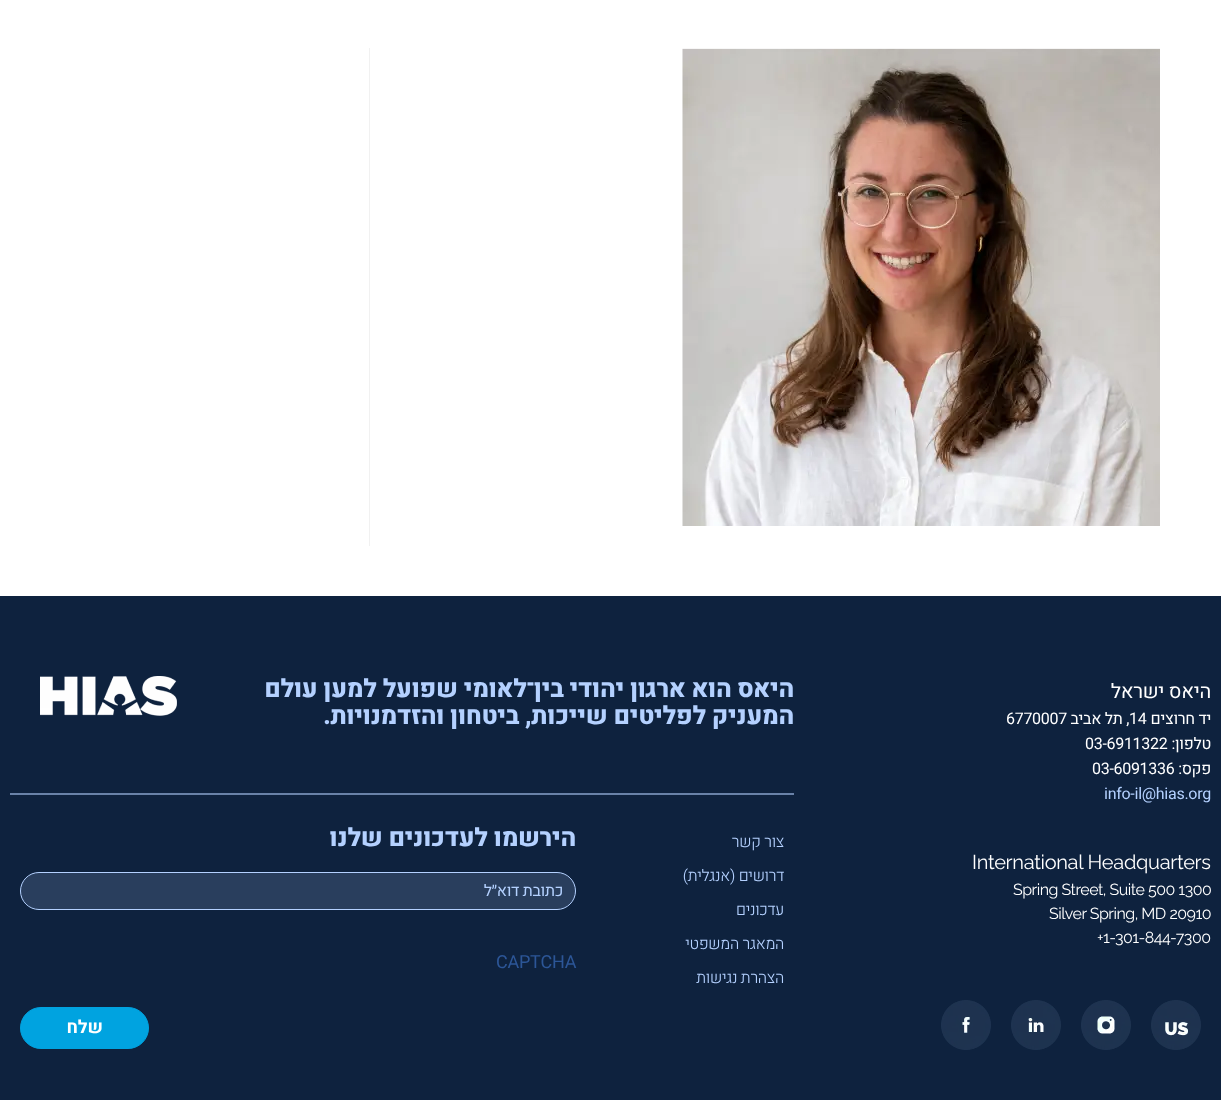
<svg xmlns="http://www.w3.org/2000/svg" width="1221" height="1100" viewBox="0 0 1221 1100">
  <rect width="100%" height="100%" fill="#ffffff"/>
  <rect x="369" y="48" width="1" height="498" fill="#f1f1f1"/>
  <image x="682" y="48" width="478" height="478" href="img1.png"/>
  <rect x="0" y="596" width="1221" height="504" fill="#0e223e"/>
  <text x="1211" y="698" font-family="Heebo" font-size="20" letter-spacing="-0.3" direction="rtl" fill="#ffffff">היאס</text>
  <text x="1164" y="698" font-family="Heebo" font-size="20" letter-spacing="-0.3" direction="rtl" fill="#ffffff">ישראל</text>
  <text x="1211" y="724" font-family="Heebo" font-size="16" letter-spacing="-0.3" direction="rtl" fill="#ffffff">יד חרוצים</text>
  <text x="1129" y="724" font-family="Heebo" font-size="16" letter-spacing="-0.3" fill="#ffffff">14</text>
  <text x="1129" y="724" font-family="Heebo" font-size="16" letter-spacing="-0.3" direction="rtl" fill="#ffffff">, תל אביב</text>
  <text x="1006" y="724" font-family="Heebo" font-size="16" letter-spacing="-0.3" fill="#ffffff">6770007</text>
  <text x="1211" y="749" font-family="Heebo" font-size="16" letter-spacing="-0.3" direction="rtl" fill="#ffffff">טלפון:</text>
  <text x="1085" y="749" font-family="Heebo" font-size="16" letter-spacing="-0.3" fill="#ffffff">03-6911322</text>
  <text x="1211" y="774" font-family="Heebo" font-size="16" letter-spacing="-0.3" direction="rtl" fill="#ffffff">פקס:</text>
  <text x="1092" y="774" font-family="Heebo" font-size="16" letter-spacing="-0.3" fill="#ffffff">03-6091336</text>
  <text x="1104" y="799" font-family="Heebo" font-size="16" letter-spacing="-0.3" fill="#b4d1ff">info-il@hias.org</text>
  <text x="972" y="869" font-family="Raleway" font-size="20" letter-spacing="-0.3" fill="#ffffff">International Headquarters</text>
  <text x="1013" y="895" font-family="Raleway" font-size="16" letter-spacing="-0.5" fill="#ffffff">Spring Street, Suite 500 1300</text>
  <text x="1049" y="919" font-family="Raleway" font-size="16" letter-spacing="-0.5" fill="#ffffff">Silver Spring, MD 20910</text>
  <text x="1097" y="943" font-family="Raleway" font-size="16" letter-spacing="-0.5" fill="#ffffff">+1-301-844-7300</text>
  <image x="1151" y="1000" width="50" height="50" href="img2.png"/>
  <image x="1081" y="1000" width="50" height="50" href="img3.png"/>
  <image x="1011" y="1000" width="50" height="50" href="img4.png"/>
  <image x="941" y="1000" width="50" height="50" href="img5.png"/>
  <rect x="10" y="793" width="784" height="2" fill="#6982a8"/>
  <text x="794" y="697" font-family="Heebo" font-size="25" font-weight="800" letter-spacing="-0.3" direction="rtl" fill="#b4d1ff">היאס הוא ארגון יהודי בין־לאומי שפועל למען עולם</text>
  <text x="794" y="724" font-family="Heebo" font-size="25" font-weight="800" letter-spacing="-0.3" direction="rtl" fill="#b4d1ff">המעניק לפליטים שייכות, ביטחון והזדמנויות.</text>
  <image x="40" y="676" width="137" height="40" href="img6.png"/>
  <text x="784" y="847" font-family="Heebo" font-size="16" font-weight="300" letter-spacing="-0.3" direction="rtl" fill="#b4d1ff">צור קשר</text>
  <text x="784" y="881" font-family="Heebo" font-size="16" font-weight="300" letter-spacing="-0.3" direction="rtl" fill="#b4d1ff">דרושים (אנגלית)</text>
  <text x="784" y="915" font-family="Heebo" font-size="16" font-weight="300" letter-spacing="-0.3" direction="rtl" fill="#b4d1ff">עדכונים</text>
  <text x="784" y="949" font-family="Heebo" font-size="16" font-weight="300" letter-spacing="-0.3" direction="rtl" fill="#b4d1ff">המאגר המשפטי</text>
  <text x="784" y="983" font-family="Heebo" font-size="16" font-weight="300" letter-spacing="-0.3" direction="rtl" fill="#b4d1ff">הצהרת נגישות</text>
  <text x="576" y="846" font-family="Heebo" font-size="25" font-weight="800" letter-spacing="-0.3" direction="rtl" fill="#b4d1ff">הירשמו לעדכונים שלנו</text>
  <rect x="20.5" y="872.5" width="555" height="37" rx="18.5" fill="#293e5d" stroke="#b4d1ff"/>
  <text x="563" y="896" font-family="Heebo" font-size="16" letter-spacing="-0.3" direction="rtl" fill="#b4d1ff">כתובת דוא״ל</text>
  <text x="496" y="968" font-family="Heebo" font-size="18" letter-spacing="-0.25" fill="#2c5697">CAPTCHA</text>
  <rect x="20.5" y="1007.5" width="128" height="41" rx="20.5" fill="#00a3e0" stroke="#00a3e0"/>
  <text x="103" y="1033" font-family="Heebo" font-size="18" font-weight="bold" direction="rtl" fill="#ffffff">שלח</text>
</svg>
